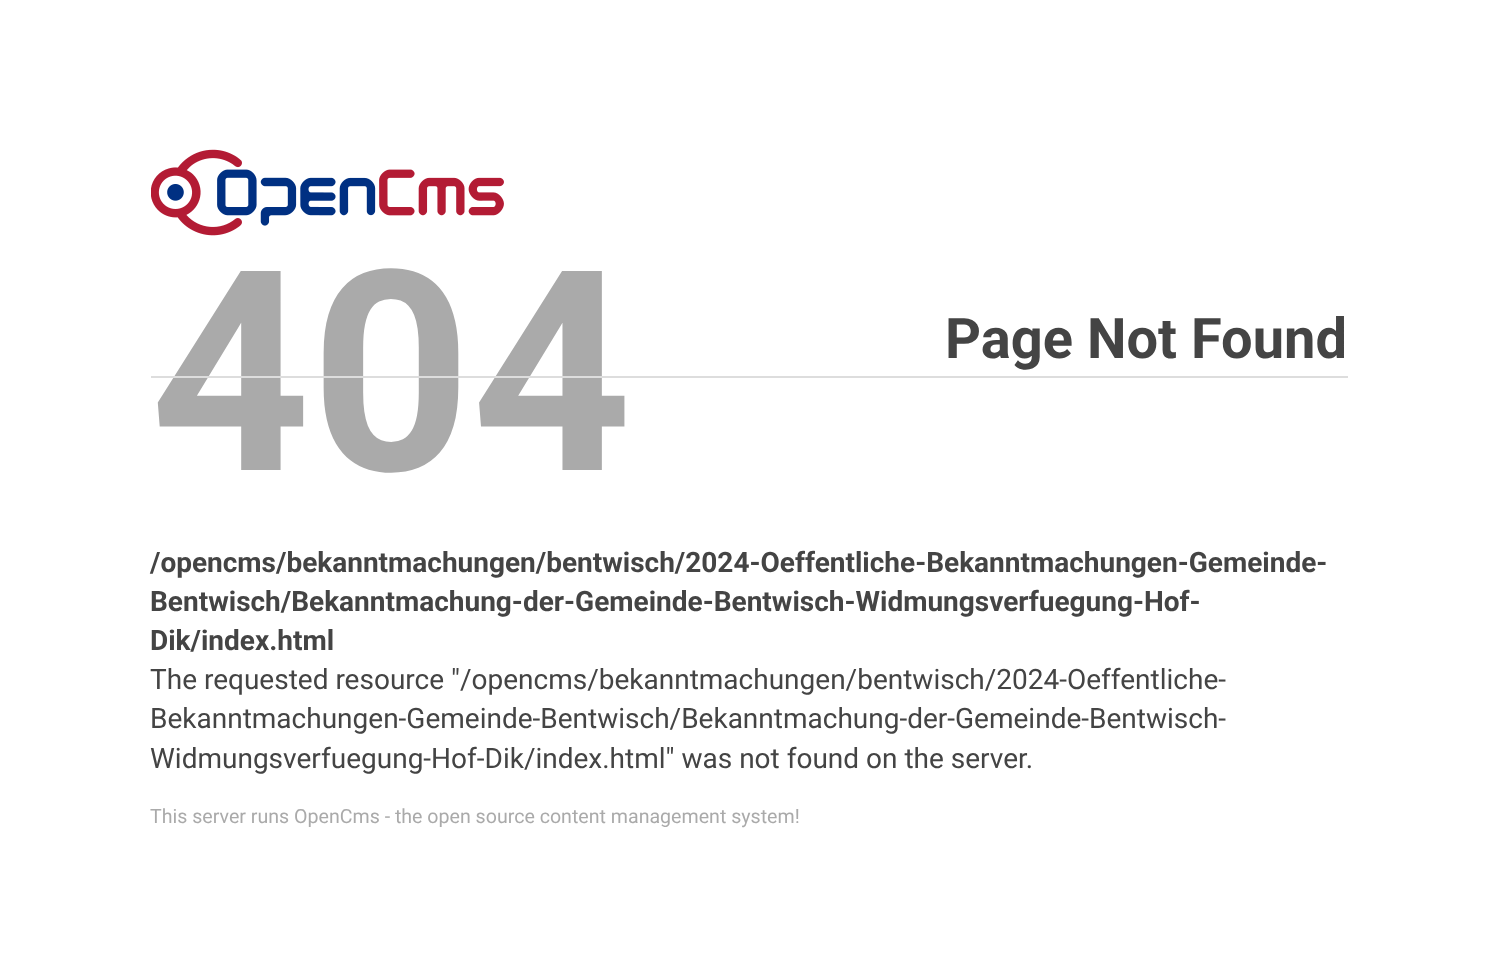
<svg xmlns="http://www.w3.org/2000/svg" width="1495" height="974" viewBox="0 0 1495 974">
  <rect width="100%" height="100%" fill="#ffffff"/>
  <image x="151" y="149" width="353" height="87" href="img1.png"/>
  <text x="150" y="470" font-family="Roboto" font-size="280" font-weight="bold" fill="#aaaaaa">404</text>
  <rect x="151" y="376" width="1197" height="2" fill="#dddddd"/>
  <text x="945" y="358" font-family="Roboto" font-size="56" font-weight="bold" fill="#444444">Page Not Found</text>
  <text x="150" y="572" font-family="Roboto" font-size="28" font-weight="bold" fill="#444444">/opencms/bekanntmachungen/bentwisch/2024-Oeffentliche-Bekanntmachungen-Gemeinde-</text>
  <text x="150" y="611" font-family="Roboto" font-size="28" font-weight="bold" fill="#444444">Bentwisch/Bekanntmachung-der-Gemeinde-Bentwisch-Widmungsverfuegung-Hof-</text>
  <text x="150" y="650" font-family="Roboto" font-size="28" font-weight="bold" fill="#444444">Dik/index.html</text>
  <text x="150" y="689" font-family="Roboto" font-size="28" fill="#444444">The requested resource "/opencms/bekanntmachungen/bentwisch/2024-Oeffentliche-</text>
  <text x="150" y="728" font-family="Roboto" font-size="28" fill="#444444">Bekanntmachungen-Gemeinde-Bentwisch/Bekanntmachung-der-Gemeinde-Bentwisch-</text>
  <text x="150" y="768" font-family="Roboto" font-size="28" fill="#444444">Widmungsverfuegung-Hof-Dik/index.html" was not found on the server.</text>
  <text x="150" y="823" font-family="Roboto" font-size="19.6" fill="#aaaaaa">This server runs OpenCms - the open source content management system!</text>
</svg>
